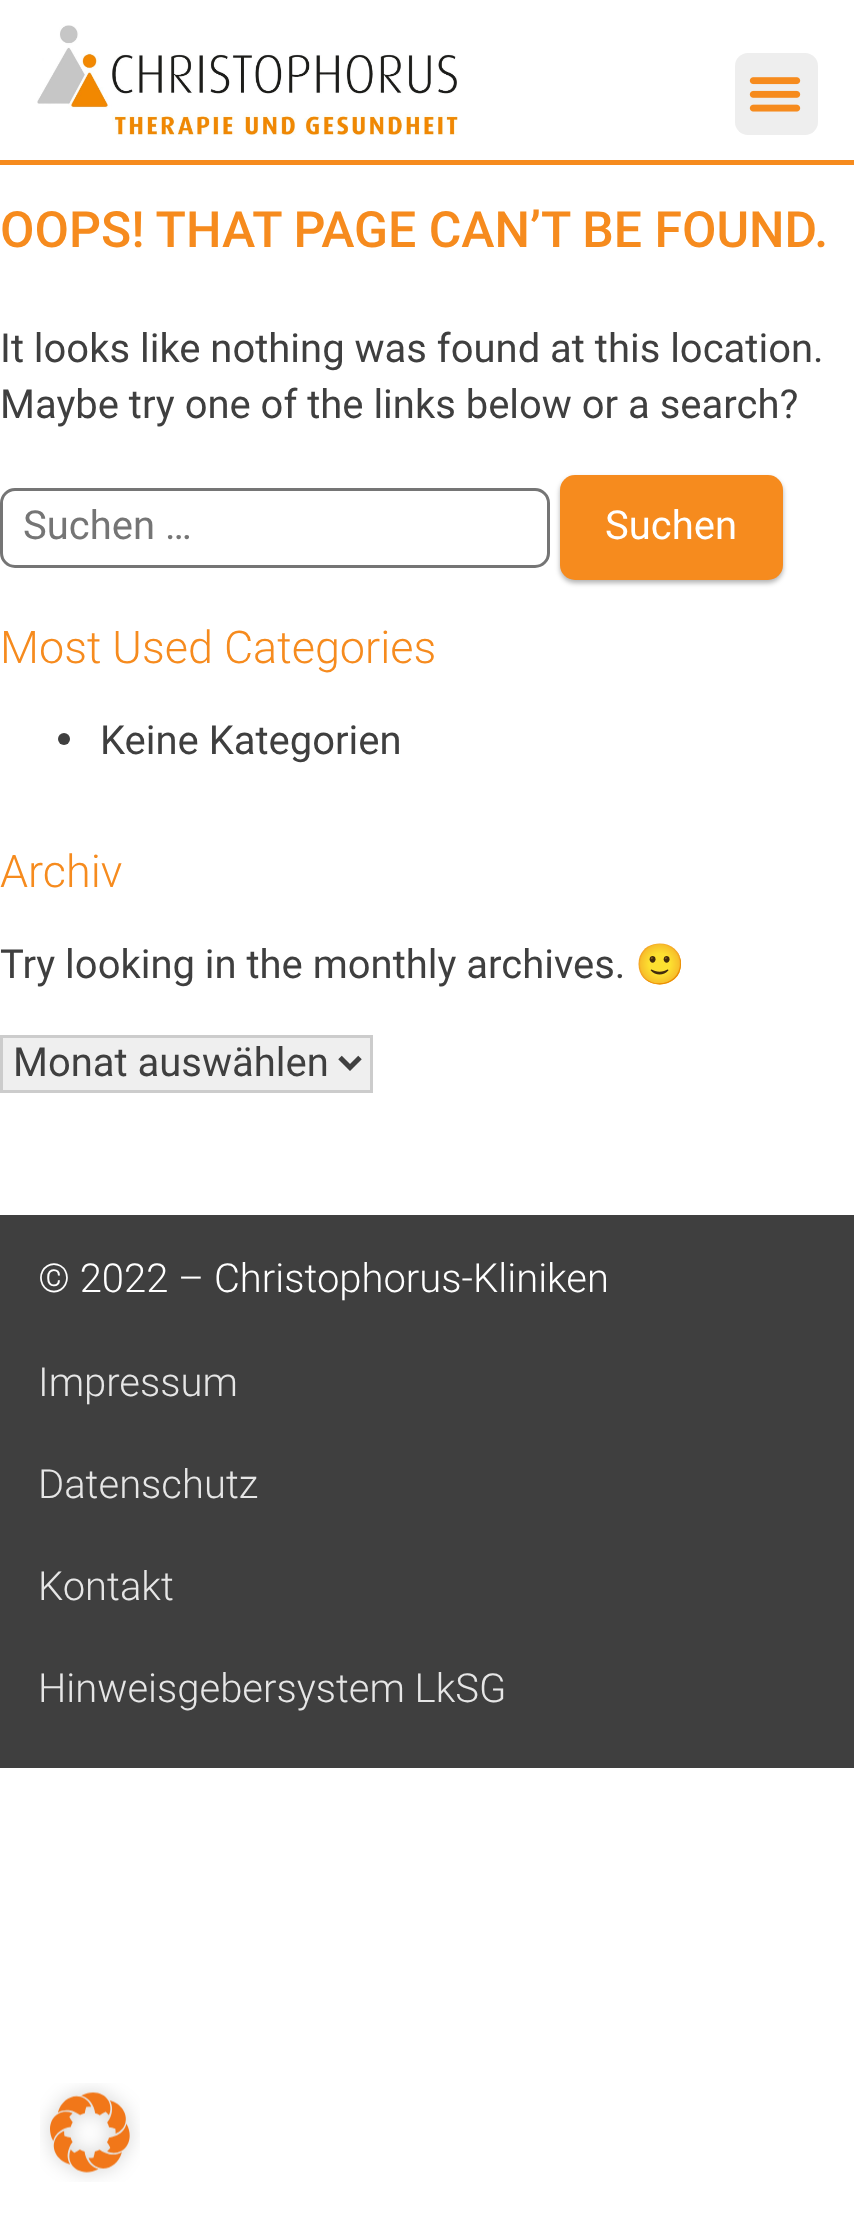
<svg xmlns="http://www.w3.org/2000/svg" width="854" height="2237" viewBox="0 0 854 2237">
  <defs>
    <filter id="blur1" x="-50%" y="-200%" width="200%" height="500%"><feGaussianBlur stdDeviation="2.5"/></filter>
  </defs>
  <rect width="100%" height="100%" fill="#ffffff"/>
  <rect x="0" y="160" width="854" height="5" fill="#f68b1e"/>
  <image x="37" y="25" width="421" height="110" href="img1.png"/>
  <rect x="735" y="53" width="83" height="82" rx="13" fill="#eeeeee"/>
  <image x="749" y="77" width="52" height="35" href="img2.png"/>
  <text x="0" y="247" font-family="Roboto" font-size="50" font-weight="500" fill="#f68b1e">OOPS! THAT PAGE CAN’T BE FOUND.</text>
  <text x="0" y="362" font-family="Roboto" font-size="40" fill="#3f3f3f">It looks like nothing was found at this location.</text>
  <text x="0" y="418" font-family="Roboto" font-size="40" fill="#3f3f3f">Maybe try one of the links below or a search?</text>
  <rect x="1.5" y="489.5" width="547" height="77" rx="13.5" fill="none" stroke="#757575" stroke-width="3"/>
  <text x="23" y="539" font-family="Roboto" font-size="40" fill="#757575">Suchen …</text>
  <rect x="560" y="478" width="223" height="105" rx="15" fill="#000000" fill-opacity="0.3" filter="url(#blur1)"/>
  <rect x="560" y="475" width="223" height="105" rx="15" fill="#f68b1e"/>
  <text x="605" y="539" font-family="Roboto" font-size="40" fill="#ffffff">Suchen</text>
  <text x="0" y="663" font-family="Roboto" font-size="45" font-weight="300" fill="#f68b1e">Most Used Categories</text>
  <circle cx="64" cy="739" r="6" fill="#3f3f3f"/>
  <text x="100" y="754" font-family="Roboto" font-size="40" fill="#3f3f3f">Keine Kategorien</text>
  <text x="0" y="887" font-family="Roboto" font-size="45" font-weight="300" fill="#f68b1e">Archiv</text>
  <text x="0" y="978" font-family="Roboto" font-size="40" fill="#3f3f3f">Try looking in the monthly archives.</text>
  <text x="635" y="978" font-family="Noto Color Emoji" font-size="40" fill="#3f3f3f">🙂</text>
  <rect x="1.5" y="1036.5" width="370" height="55" fill="#efefef" stroke="#cccccc" stroke-width="3"/>
  <path d="M340 1057.5L350 1067.5L360 1057.5" fill="none" stroke="#404040" stroke-width="5"/>
  <text x="13" y="1076" font-family="Roboto" font-size="40" fill="#3f3f3f">Monat auswählen</text>
  <rect x="0" y="1215" width="854" height="553" fill="#3f3f3f"/>
  <text x="38" y="1292" font-family="Roboto" font-size="40" font-weight="300" fill="#ffffff">© 2022 – Christophorus-Kliniken</text>
  <text x="38" y="1396" font-family="Roboto" font-size="40" font-weight="300" fill="#e6e6e6">Impressum</text>
  <text x="38" y="1498" font-family="Roboto" font-size="40" font-weight="300" fill="#e6e6e6">Datenschutz</text>
  <text x="38" y="1600" font-family="Roboto" font-size="40" font-weight="300" fill="#e6e6e6">Kontakt</text>
  <text x="38" y="1702" font-family="Roboto" font-size="40" font-weight="300" fill="#e6e6e6">Hinweisgebersystem LkSG</text>
  <image x="40" y="2083" width="100" height="99" href="img3.png"/>
</svg>
